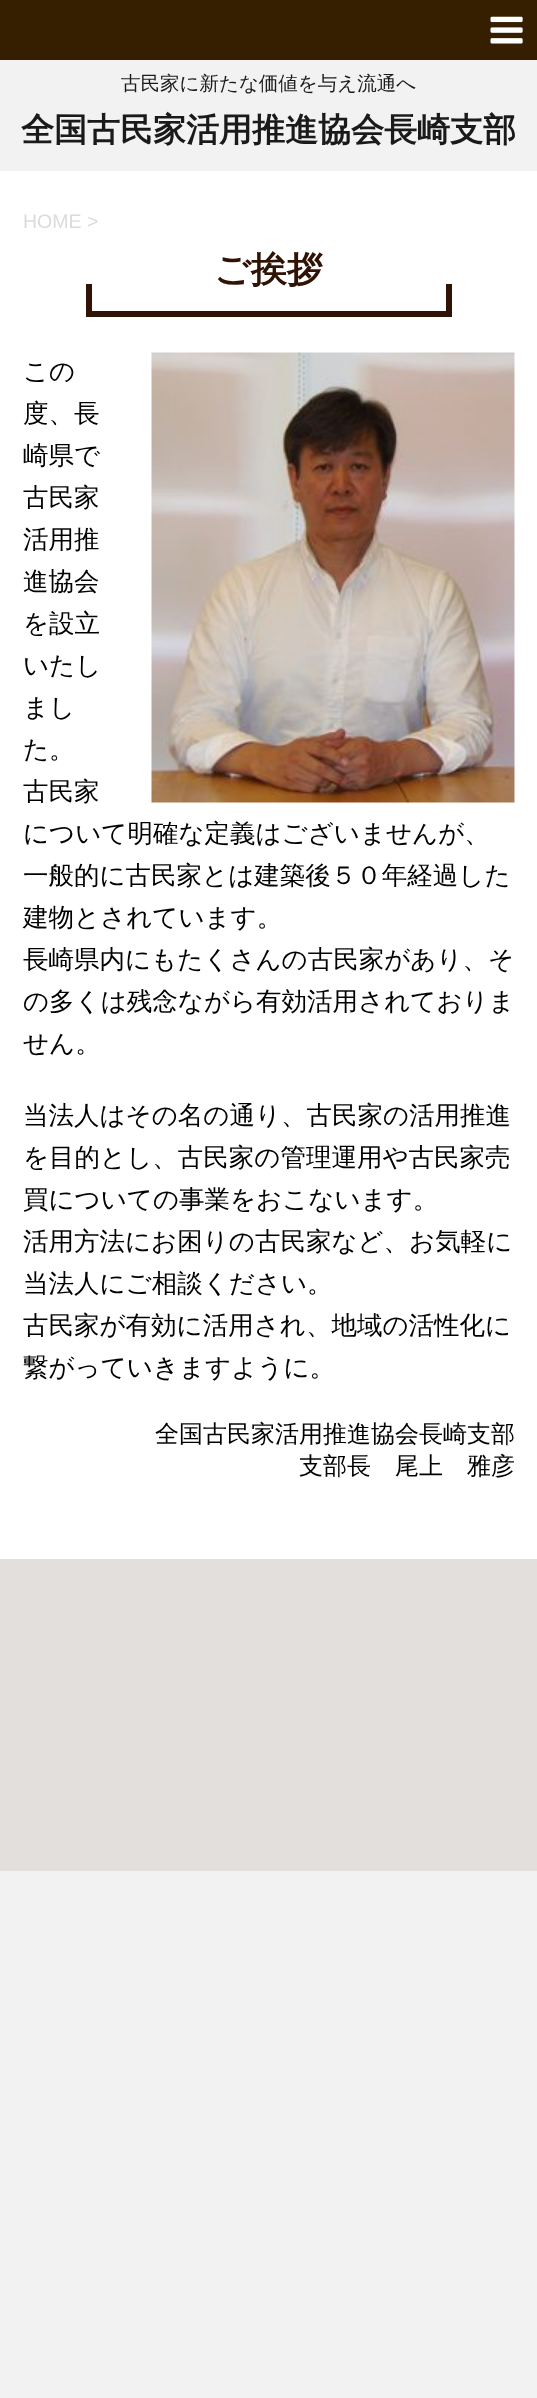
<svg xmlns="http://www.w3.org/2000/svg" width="537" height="2398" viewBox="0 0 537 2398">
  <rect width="100%" height="100%" fill="#f2f2f2"/>
  <rect x="0" y="0" width="537" height="60" fill="#351f00"/>
  <image x="490" y="16" width="33" height="28" href="img1.png"/>
  <text x="121" y="90" font-family="WenQuanYi Zen Hei" font-size="19.5" font-weight="500" fill="#1a1a1a">古民家に新たな価値を与え流通へ</text>
  <text x="21" y="141" font-family="WenQuanYi Zen Hei" font-size="33" font-weight="bold" fill="#1a1a1a">全国古民家活用推進協会長崎支部</text>
  <rect x="0" y="171" width="537" height="1388" fill="#ffffff"/>
  <text x="23" y="228" font-family="Liberation Sans" font-size="19.5" fill="#dbdbdb">HOME &gt;</text>
  <rect x="86" y="311" width="366" height="6" fill="#301304"/>
  <text x="214" y="282" font-family="WenQuanYi Zen Hei" font-size="36" font-weight="bold" fill="#301304">ご挨拶</text>
  <rect x="86" y="284" width="6" height="27" fill="#301304"/>
  <rect x="446" y="284" width="6" height="27" fill="#301304"/>
  <text x="23" y="380" font-family="WenQuanYi Zen Hei" font-size="25.5" font-weight="500" fill="#000000">この</text>
  <image x="151" y="352" width="364" height="451" href="img2.png"/>
  <text x="23" y="422" font-family="WenQuanYi Zen Hei" font-size="25.5" font-weight="500" fill="#000000">度、長</text>
  <text x="23" y="464" font-family="WenQuanYi Zen Hei" font-size="25.5" font-weight="500" fill="#000000">崎県で</text>
  <text x="23" y="506" font-family="WenQuanYi Zen Hei" font-size="25.5" font-weight="500" fill="#000000">古民家</text>
  <text x="23" y="548" font-family="WenQuanYi Zen Hei" font-size="25.5" font-weight="500" fill="#000000">活用推</text>
  <text x="23" y="590" font-family="WenQuanYi Zen Hei" font-size="25.5" font-weight="500" fill="#000000">進協会</text>
  <text x="23" y="632" font-family="WenQuanYi Zen Hei" font-size="25.5" font-weight="500" fill="#000000">を設立</text>
  <text x="23" y="674" font-family="WenQuanYi Zen Hei" font-size="25.5" font-weight="500" fill="#000000">いたし</text>
  <text x="23" y="716" font-family="WenQuanYi Zen Hei" font-size="25.5" font-weight="500" fill="#000000">まし</text>
  <text x="23" y="758" font-family="WenQuanYi Zen Hei" font-size="25.5" font-weight="500" fill="#000000">た。</text>
  <text x="23" y="800" font-family="WenQuanYi Zen Hei" font-size="25.5" font-weight="500" fill="#000000">古民家</text>
  <text x="23" y="842" font-family="WenQuanYi Zen Hei" font-size="25.5" font-weight="500" fill="#000000">について明確な定義はございませんが、</text>
  <text x="23" y="884" font-family="WenQuanYi Zen Hei" font-size="25.5" font-weight="500" fill="#000000">一般的に古民家とは建築後５０年経過した</text>
  <text x="23" y="926" font-family="WenQuanYi Zen Hei" font-size="25.5" font-weight="500" fill="#000000">建物とされています。</text>
  <text x="23" y="968" font-family="WenQuanYi Zen Hei" font-size="25.5" font-weight="500" fill="#000000">長崎県内にもたくさんの古民家があり、そ</text>
  <text x="23" y="1010" font-family="WenQuanYi Zen Hei" font-size="25.5" font-weight="500" fill="#000000">の多くは残念ながら有効活用されておりま</text>
  <text x="23" y="1052" font-family="WenQuanYi Zen Hei" font-size="25.5" font-weight="500" fill="#000000">せん。</text>
  <text x="23" y="1124" font-family="WenQuanYi Zen Hei" font-size="25.5" font-weight="500" fill="#000000">当法人はその名の通り、古民家の活用推進</text>
  <text x="23" y="1166" font-family="WenQuanYi Zen Hei" font-size="25.5" font-weight="500" fill="#000000">を目的とし、古民家の管理運用や古民家売</text>
  <text x="23" y="1208" font-family="WenQuanYi Zen Hei" font-size="25.5" font-weight="500" fill="#000000">買についての事業をおこないます。</text>
  <text x="23" y="1250" font-family="WenQuanYi Zen Hei" font-size="25.5" font-weight="500" fill="#000000">活用方法にお困りの古民家など、お気軽に</text>
  <text x="23" y="1292" font-family="WenQuanYi Zen Hei" font-size="25.5" font-weight="500" fill="#000000">当法人にご相談ください。</text>
  <text x="23" y="1334" font-family="WenQuanYi Zen Hei" font-size="25.5" font-weight="500" fill="#000000">古民家が有効に活用され、地域の活性化に</text>
  <text x="23" y="1376" font-family="WenQuanYi Zen Hei" font-size="25.5" font-weight="500" fill="#000000">繋がっていきますように。</text>
  <text x="155" y="1442" font-family="WenQuanYi Zen Hei" font-size="24" font-weight="500" fill="#000000">全国古民家活用推進協会長崎支部</text>
  <text x="299" y="1474" font-family="WenQuanYi Zen Hei" font-size="24" font-weight="500" fill="#000000">支部長　尾上　雅彦</text>
  <rect x="0" y="1559" width="537" height="312" fill="#e2dfdc"/>
</svg>
